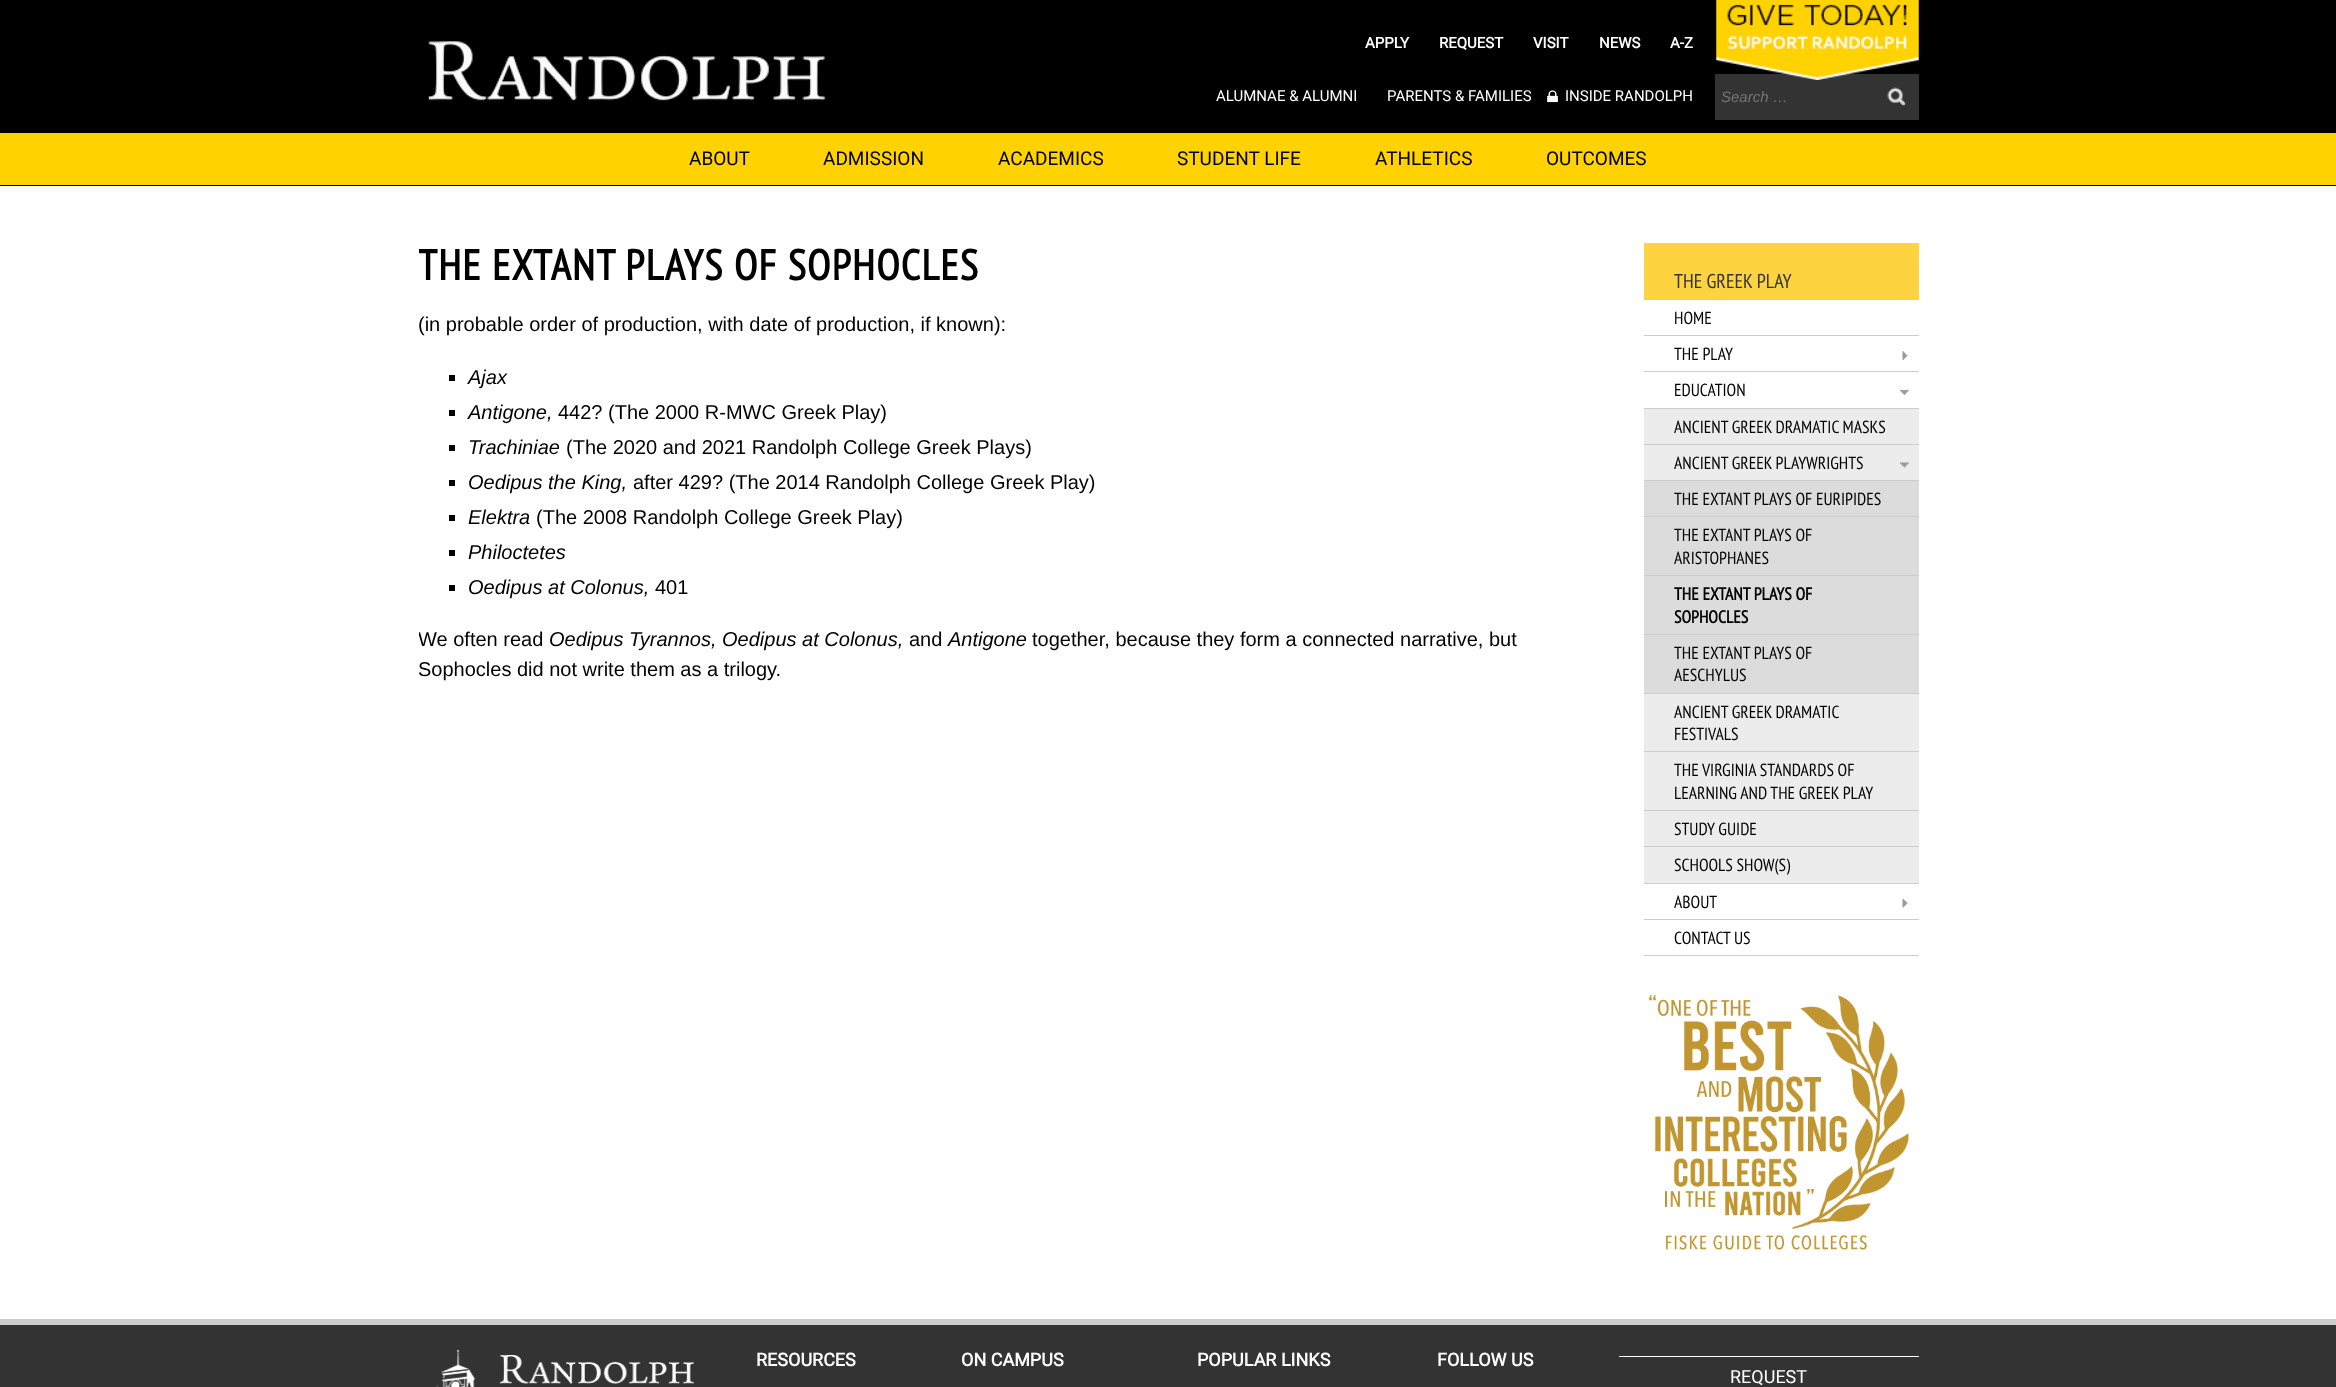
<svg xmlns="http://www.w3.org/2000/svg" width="2336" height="1387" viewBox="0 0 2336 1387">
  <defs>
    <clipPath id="clip1"><rect x="419" y="186" width="1500" height="1083"/></clipPath>
  </defs>
  <rect width="100%" height="100%" fill="#333333"/>
  <rect x="0" y="0" width="2336" height="186" fill="#000000"/>
  <image x="428" y="41" width="398" height="60" href="img1.png"/>
  <text x="1365" y="48" font-family="Roboto" font-size="15" font-weight="bold" fill="#ffffff">APPLY</text>
  <text x="1439" y="48" font-family="Roboto" font-size="15" font-weight="bold" fill="#ffffff">REQUEST</text>
  <text x="1533" y="48" font-family="Roboto" font-size="15" font-weight="bold" fill="#ffffff">VISIT</text>
  <text x="1599" y="48" font-family="Roboto" font-size="15" font-weight="bold" fill="#ffffff">NEWS</text>
  <text x="1670" y="48" font-family="Roboto" font-size="15" font-weight="bold" fill="#ffffff">A-Z</text>
  <rect x="1715" y="74" width="204" height="46" fill="#333333"/>
  <image x="1716" y="0" width="203" height="80" href="img2.png"/>
  <text x="1216" y="101" font-family="Roboto" font-size="15" fill="#ffffff">ALUMNAE &amp; ALUMNI</text>
  <text x="1387" y="101" font-family="Roboto" font-size="15" fill="#ffffff">PARENTS &amp; FAMILIES</text>
  <image x="1547" y="90" width="11" height="13" href="img3.png"/>
  <text x="1565" y="101" font-family="Roboto" font-size="15" fill="#ffffff">INSIDE RANDOLPH</text>
  <text x="1721" y="102" font-family="Liberation Sans" font-size="15" font-style="italic" fill="#757575">Search …</text>
  <image x="1887" y="87" width="19" height="19" href="img4.png"/>
  <rect x="0" y="133" width="2336" height="52" fill="#ffd200"/>
  <text x="689" y="165" font-family="Roboto" font-size="19" fill="#000000">ABOUT</text>
  <text x="823" y="165" font-family="Roboto" font-size="19" fill="#000000">ADMISSION</text>
  <text x="998" y="165" font-family="Roboto" font-size="19" fill="#000000">ACADEMICS</text>
  <text x="1177" y="165" font-family="Roboto" font-size="19" fill="#000000">STUDENT LIFE</text>
  <text x="1375" y="165" font-family="Roboto" font-size="19" fill="#000000">ATHLETICS</text>
  <text x="1546" y="165" font-family="Roboto" font-size="19" fill="#000000">OUTCOMES</text>
  <rect x="0" y="186" width="2336" height="1133" fill="#ffffff"/>
  <g clip-path="url(#clip1)">
    <text x="418" y="280" font-family="PT Sans Narrow" font-size="42.5" font-weight="bold" letter-spacing="1.25" fill="#000000">THE EXTANT PLAYS OF SOPHOCLES</text>
  </g>
  <text x="418" y="331" font-family="Liberation Sans" font-size="20" fill="#000000">(in probable order of production, with date of production, if known):</text>
  <rect x="449" y="375" width="6" height="6" fill="#000000"/>
  <text x="468" y="384" font-family="Liberation Sans" font-size="20" font-style="italic" fill="#000000">Ajax</text>
  <rect x="449" y="410" width="6" height="6" fill="#000000"/>
  <text x="468" y="419" font-family="Liberation Sans" font-size="20" font-style="italic" fill="#000000">Antigone,</text>
  <text x="558" y="419" font-family="Liberation Sans" font-size="20" fill="#000000">442? (The 2000 R-MWC Greek Play)</text>
  <rect x="449" y="445" width="6" height="6" fill="#000000"/>
  <text x="468" y="454" font-family="Liberation Sans" font-size="20" font-style="italic" fill="#000000">Trachiniae</text>
  <text x="566" y="454" font-family="Liberation Sans" font-size="20" fill="#000000">(The 2020 and 2021 Randolph College Greek Plays)</text>
  <rect x="449" y="480" width="6" height="6" fill="#000000"/>
  <text x="468" y="489" font-family="Liberation Sans" font-size="20" font-style="italic" fill="#000000">Oedipus the King,</text>
  <text x="633" y="489" font-family="Liberation Sans" font-size="20" fill="#000000">after 429? (The 2014 Randolph College Greek Play)</text>
  <rect x="449" y="515" width="6" height="6" fill="#000000"/>
  <text x="468" y="524" font-family="Liberation Sans" font-size="20" font-style="italic" fill="#000000">Elektra</text>
  <text x="536" y="524" font-family="Liberation Sans" font-size="20" fill="#000000">(The 2008 Randolph College Greek Play)</text>
  <rect x="449" y="550" width="6" height="6" fill="#000000"/>
  <text x="468" y="559" font-family="Liberation Sans" font-size="20" font-style="italic" fill="#000000">Philoctetes</text>
  <rect x="449" y="585" width="6" height="6" fill="#000000"/>
  <text x="468" y="594" font-family="Liberation Sans" font-size="20" font-style="italic" fill="#000000">Oedipus at Colonus,</text>
  <text x="655" y="594" font-family="Liberation Sans" font-size="20" fill="#000000">401</text>
  <g clip-path="url(#clip1)">
    <text x="418" y="646" font-family="Liberation Sans" font-size="20" fill="#000000">We often read</text>
  </g>
  <text x="549" y="646" font-family="Liberation Sans" font-size="20" font-style="italic" fill="#000000">Oedipus Tyrannos, Oedipus at Colonus,</text>
  <text x="909" y="646" font-family="Liberation Sans" font-size="20" fill="#000000">and</text>
  <text x="948" y="646" font-family="Liberation Sans" font-size="20" font-style="italic" fill="#000000">Antigone</text>
  <text x="1032" y="646" font-family="Liberation Sans" font-size="20" fill="#000000">together, because they form a connected narrative, but</text>
  <text x="418" y="676" font-family="Liberation Sans" font-size="20" fill="#000000">Sophocles did not write them as a trilogy.</text>
  <rect x="1644" y="955" width="275" height="1" fill="#cccccc"/>
  <rect x="1644" y="243" width="275" height="56" fill="#fdd440"/>
  <text x="1674" y="288" font-family="PT Sans Narrow" font-size="20" fill="#333333">THE GREEK PLAY</text>
  <rect x="1644" y="299" width="275" height="1" fill="#cccccc"/>
  <text x="1674" y="324" font-family="PT Sans Narrow" font-size="17.5" fill="#000000">HOME</text>
  <image x="1902" y="351" width="6" height="9" href="img5.png"/>
  <rect x="1644" y="335" width="275" height="1" fill="#cccccc"/>
  <text x="1674" y="360" font-family="PT Sans Narrow" font-size="17.5" fill="#000000">THE PLAY</text>
  <image x="1900" y="389" width="9" height="7" href="img6.png"/>
  <rect x="1644" y="371" width="275" height="1" fill="#cccccc"/>
  <text x="1674" y="396" font-family="PT Sans Narrow" font-size="17.5" fill="#000000">EDUCATION</text>
  <rect x="1644" y="409" width="275" height="474" fill="#ececec"/>
  <rect x="1644" y="408" width="275" height="1" fill="#cccccc"/>
  <text x="1674" y="433" font-family="PT Sans Narrow" font-size="17.5" fill="#000000">ANCIENT GREEK DRAMATIC MASKS</text>
  <image x="1900" y="462" width="9" height="6" href="img7.png"/>
  <rect x="1644" y="444" width="275" height="1" fill="#cccccc"/>
  <text x="1674" y="469" font-family="PT Sans Narrow" font-size="17.5" fill="#000000">ANCIENT GREEK PLAYWRIGHTS</text>
  <rect x="1644" y="481" width="275" height="212" fill="#dcdcdc"/>
  <rect x="1644" y="480" width="275" height="1" fill="#cccccc"/>
  <text x="1674" y="505" font-family="PT Sans Narrow" font-size="17.5" fill="#000000">THE EXTANT PLAYS OF EURIPIDES</text>
  <rect x="1644" y="516" width="275" height="1" fill="#cccccc"/>
  <text x="1674" y="541" font-family="PT Sans Narrow" font-size="17.5" fill="#000000">THE EXTANT PLAYS OF</text>
  <text x="1674" y="564" font-family="PT Sans Narrow" font-size="17.5" fill="#000000">ARISTOPHANES</text>
  <rect x="1644" y="575" width="275" height="1" fill="#cccccc"/>
  <text x="1674" y="600" font-family="PT Sans Narrow" font-size="17.5" font-weight="bold" fill="#000000">THE EXTANT PLAYS OF</text>
  <text x="1674" y="623" font-family="PT Sans Narrow" font-size="17.5" font-weight="bold" fill="#000000">SOPHOCLES</text>
  <rect x="1644" y="634" width="275" height="1" fill="#cccccc"/>
  <text x="1674" y="659" font-family="PT Sans Narrow" font-size="17.5" fill="#000000">THE EXTANT PLAYS OF</text>
  <text x="1674" y="681" font-family="PT Sans Narrow" font-size="17.5" fill="#000000">AESCHYLUS</text>
  <rect x="1644" y="693" width="275" height="1" fill="#cccccc"/>
  <text x="1674" y="718" font-family="PT Sans Narrow" font-size="17.5" fill="#000000">ANCIENT GREEK DRAMATIC</text>
  <text x="1674" y="740" font-family="PT Sans Narrow" font-size="17.5" fill="#000000">FESTIVALS</text>
  <rect x="1644" y="751" width="275" height="1" fill="#cccccc"/>
  <text x="1674" y="776" font-family="PT Sans Narrow" font-size="17.5" fill="#000000">THE VIRGINIA STANDARDS OF</text>
  <text x="1674" y="799" font-family="PT Sans Narrow" font-size="17.5" fill="#000000">LEARNING AND THE GREEK PLAY</text>
  <rect x="1644" y="810" width="275" height="1" fill="#cccccc"/>
  <text x="1674" y="835" font-family="PT Sans Narrow" font-size="17.5" fill="#000000">STUDY GUIDE</text>
  <rect x="1644" y="846" width="275" height="1" fill="#cccccc"/>
  <text x="1674" y="871" font-family="PT Sans Narrow" font-size="17.5" fill="#000000">SCHOOLS SHOW(S)</text>
  <image x="1902" y="898" width="6" height="10" href="img8.png"/>
  <rect x="1644" y="883" width="275" height="1" fill="#cccccc"/>
  <text x="1674" y="908" font-family="PT Sans Narrow" font-size="17.5" fill="#000000">ABOUT</text>
  <rect x="1644" y="919" width="275" height="1" fill="#cccccc"/>
  <text x="1674" y="944" font-family="PT Sans Narrow" font-size="17.5" fill="#000000">CONTACT US</text>
  <image x="1649" y="995" width="260" height="255" href="img9.png"/>
  <rect x="0" y="1319" width="2336" height="6" fill="#cccccc"/>
  <image x="436" y="1350" width="258" height="37" href="img10.png"/>
  <text x="756" y="1366" font-family="Roboto" font-size="18" font-weight="bold" fill="#ffffff">RESOURCES</text>
  <text x="961" y="1366" font-family="Roboto" font-size="18" font-weight="bold" fill="#ffffff">ON CAMPUS</text>
  <text x="1197" y="1366" font-family="Roboto" font-size="18" font-weight="bold" fill="#ffffff">POPULAR LINKS</text>
  <text x="1437" y="1366" font-family="Roboto" font-size="18" font-weight="bold" fill="#ffffff">FOLLOW US</text>
  <rect x="1619" y="1356" width="300" height="1" fill="#ffffff"/>
  <text x="1730" y="1383" font-family="Roboto" font-size="18" fill="#ffffff">REQUEST</text>
</svg>
